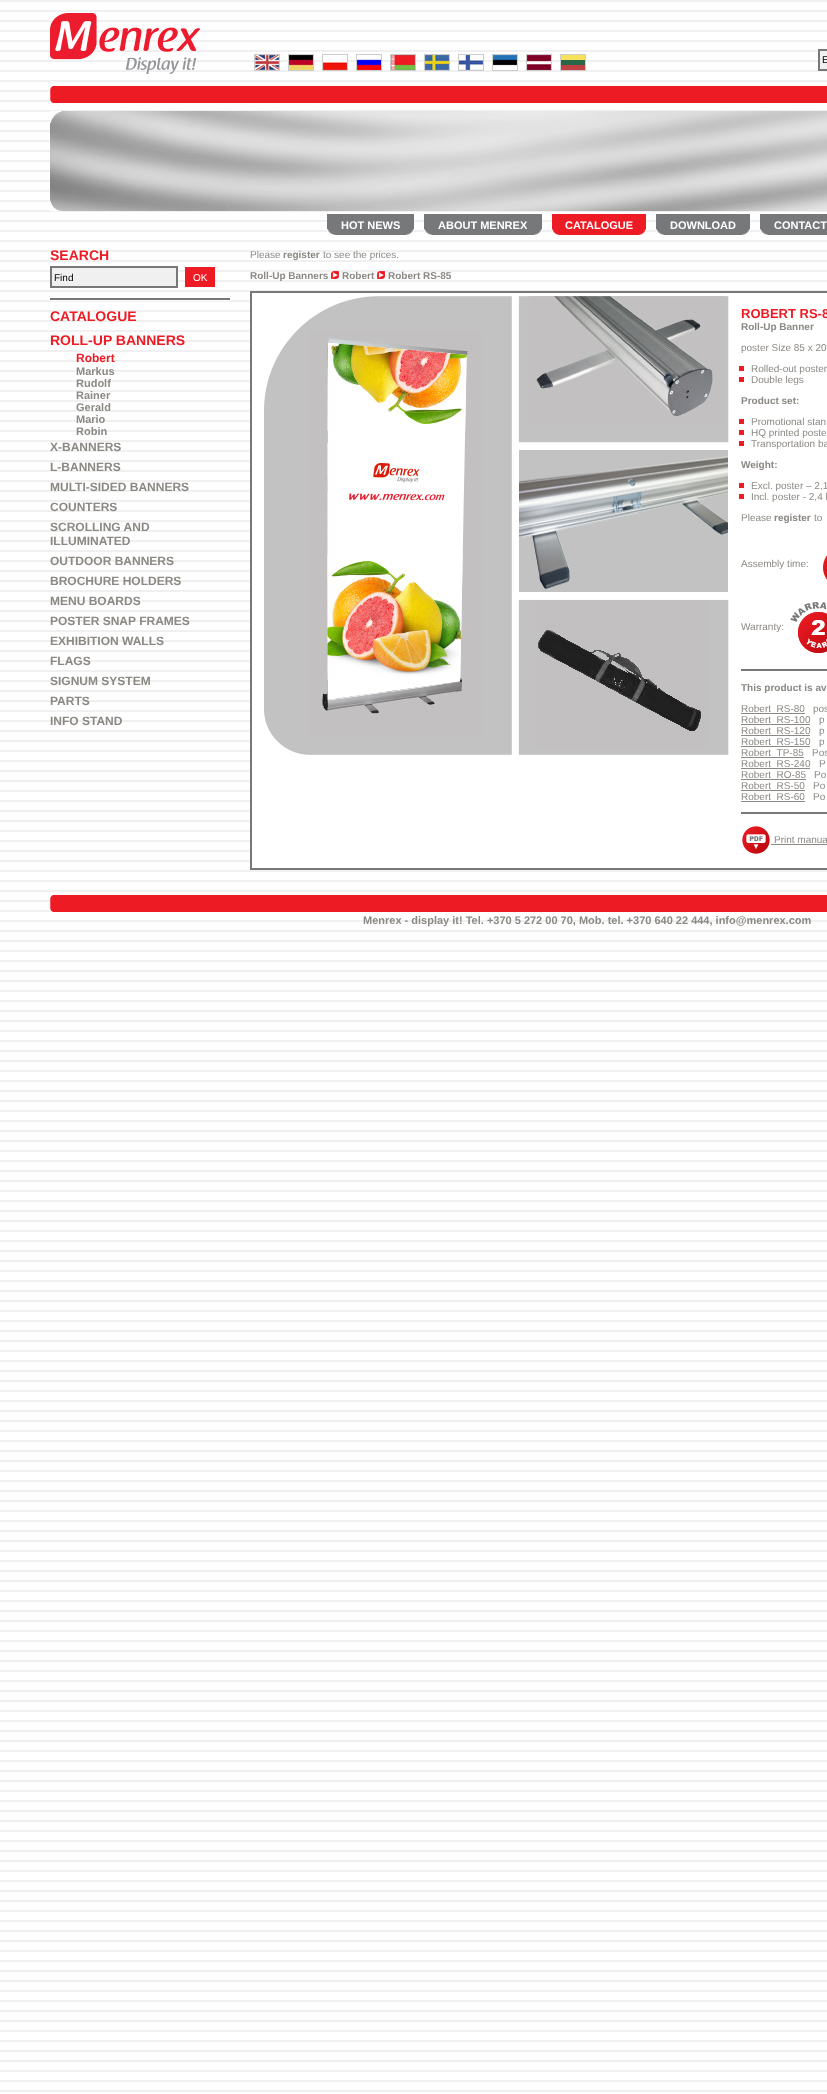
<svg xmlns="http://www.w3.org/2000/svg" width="827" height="2094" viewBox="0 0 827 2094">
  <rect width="100%" height="100%" fill="#ffffff"/>
  <image x="0" y="0" width="827" height="2092" href="img1.png"/>
  <image x="50" y="13" width="150" height="61" href="img2.png"/>
  <rect x="254.5" y="54.5" width="25" height="16" fill="none" stroke="#cccccc"/>
  <rect x="288.5" y="54.5" width="25" height="16" fill="none" stroke="#cccccc"/>
  <rect x="322.5" y="54.5" width="25" height="16" fill="none" stroke="#cccccc"/>
  <rect x="356.5" y="54.5" width="25" height="16" fill="none" stroke="#cccccc"/>
  <rect x="390.5" y="54.5" width="25" height="16" fill="none" stroke="#cccccc"/>
  <rect x="424.5" y="54.5" width="25" height="16" fill="none" stroke="#cccccc"/>
  <rect x="458.5" y="54.5" width="25" height="16" fill="none" stroke="#cccccc"/>
  <rect x="492.5" y="54.5" width="25" height="16" fill="none" stroke="#cccccc"/>
  <rect x="526.5" y="54.5" width="25" height="16" fill="none" stroke="#cccccc"/>
  <rect x="560.5" y="54.5" width="25" height="16" fill="none" stroke="#cccccc"/>
  <image x="255" y="55" width="24" height="15" href="img3.png"/>
  <image x="289" y="55" width="24" height="15" href="img4.png"/>
  <image x="323" y="60" width="24" height="10" href="img5.png"/>
  <image x="357" y="55" width="24" height="15" href="img6.png"/>
  <image x="391" y="55" width="24" height="15" href="img7.png"/>
  <image x="425" y="55" width="24" height="15" href="img8.png"/>
  <image x="459" y="55" width="24" height="15" href="img9.png"/>
  <image x="493" y="55" width="24" height="11" href="img10.png"/>
  <image x="527" y="55" width="24" height="15" href="img11.png"/>
  <image x="561" y="55" width="24" height="15" href="img12.png"/>
  <rect x="819" y="50" width="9" height="20" fill="#f0f0f0" stroke="#76787a" stroke-width="2"/>
  <text x="822" y="63" font-family="Liberation Sans" font-size="10" fill="#000000">E</text>
  <image x="50" y="86" width="4" height="17" href="img13.png"/>
  <rect x="54" y="86" width="773" height="17" fill="#ed1c24"/>
  <image x="50" y="111" width="777" height="100" href="img14.png"/>
  <rect x="61" y="111" width="2" height="1" fill="#c3c3c3"/>
  <image x="50" y="200" width="13" height="11" href="img15.png"/>
  <rect x="327" y="214" width="87" height="21" fill="#76787a"/>
  <image x="327" y="229" width="8" height="6" href="img16.png"/>
  <rect x="424" y="214" width="118" height="21" fill="#76787a"/>
  <image x="424" y="229" width="8" height="6" href="img16.png"/>
  <rect x="552" y="214" width="94" height="21" fill="#ed1c24"/>
  <image x="552" y="229" width="7" height="6" href="img17.png"/>
  <rect x="656" y="214" width="94" height="21" fill="#76787a"/>
  <image x="656" y="229" width="8" height="6" href="img16.png"/>
  <rect x="760" y="214" width="67" height="21" fill="#76787a"/>
  <image x="760" y="229" width="8" height="6" href="img16.png"/>
  <text x="341" y="229" font-family="Liberation Sans" font-size="11" font-weight="bold" fill="#ffffff">HOT NEWS</text>
  <text x="438" y="229" font-family="Liberation Sans" font-size="11" font-weight="bold" fill="#ffffff">ABOUT MENREX</text>
  <text x="565" y="229" font-family="Liberation Sans" font-size="11" font-weight="bold" fill="#ffffff">CATALOGUE</text>
  <text x="670" y="229" font-family="Liberation Sans" font-size="11" font-weight="bold" fill="#ffffff">DOWNLOAD</text>
  <text x="774" y="229" font-family="Liberation Sans" font-size="11" font-weight="bold" fill="#ffffff">CONTACT</text>
  <image x="406" y="229" width="8" height="6" href="img18.png"/>
  <image x="534" y="229" width="8" height="6" href="img18.png"/>
  <image x="639" y="229" width="7" height="6" href="img19.png"/>
  <image x="742" y="229" width="8" height="6" href="img18.png"/>
  <text x="50" y="260" font-family="Liberation Sans" font-size="14" font-weight="bold" fill="#ed1c24">SEARCH</text>
  <rect x="51" y="267" width="126" height="20" fill="#f0f0f0" stroke="#76787a" stroke-width="2"/>
  <text x="54" y="281" font-family="Liberation Sans" font-size="10" fill="#000000">Find</text>
  <rect x="185" y="267" width="30" height="20" fill="#ed1c24"/>
  <text x="193" y="281" font-family="Liberation Sans" font-size="10" fill="#ffffff">OK</text>
  <rect x="50" y="300" width="180" height="1" fill="#ffffff"/>
  <rect x="50" y="298" width="180" height="2" fill="#76787a"/>
  <text x="50" y="321" font-family="Liberation Sans" font-size="14" font-weight="bold" fill="#ed1c24">CATALOGUE</text>
  <text x="50" y="345" font-family="Liberation Sans" font-size="14" font-weight="bold" fill="#ed1c24">ROLL-UP BANNERS</text>
  <text x="76" y="362" font-family="Liberation Sans" font-size="12" font-weight="bold" fill="#ed1c24">Robert</text>
  <text x="76" y="375" font-family="Liberation Sans" font-size="11" font-weight="bold" fill="#8c8984">Markus</text>
  <text x="76" y="387" font-family="Liberation Sans" font-size="11" font-weight="bold" fill="#8c8984">Rudolf</text>
  <text x="76" y="399" font-family="Liberation Sans" font-size="11" font-weight="bold" fill="#8c8984">Rainer</text>
  <text x="76" y="411" font-family="Liberation Sans" font-size="11" font-weight="bold" fill="#8c8984">Gerald</text>
  <text x="76" y="423" font-family="Liberation Sans" font-size="11" font-weight="bold" fill="#8c8984">Mario</text>
  <text x="76" y="435" font-family="Liberation Sans" font-size="11" font-weight="bold" fill="#8c8984">Robin</text>
  <text x="50" y="451" font-family="Liberation Sans" font-size="12" font-weight="bold" fill="#8c8984">X-BANNERS</text>
  <text x="50" y="471" font-family="Liberation Sans" font-size="12" font-weight="bold" fill="#8c8984">L-BANNERS</text>
  <text x="50" y="491" font-family="Liberation Sans" font-size="12" font-weight="bold" fill="#8c8984">MULTI-SIDED BANNERS</text>
  <text x="50" y="511" font-family="Liberation Sans" font-size="12" font-weight="bold" fill="#8c8984">COUNTERS</text>
  <text x="50" y="531" font-family="Liberation Sans" font-size="12" font-weight="bold" fill="#8c8984">SCROLLING AND</text>
  <text x="50" y="545" font-family="Liberation Sans" font-size="12" font-weight="bold" fill="#8c8984">ILLUMINATED</text>
  <text x="50" y="565" font-family="Liberation Sans" font-size="12" font-weight="bold" fill="#8c8984">OUTDOOR BANNERS</text>
  <text x="50" y="585" font-family="Liberation Sans" font-size="12" font-weight="bold" fill="#8c8984">BROCHURE HOLDERS</text>
  <text x="50" y="605" font-family="Liberation Sans" font-size="12" font-weight="bold" fill="#8c8984">MENU BOARDS</text>
  <text x="50" y="625" font-family="Liberation Sans" font-size="12" font-weight="bold" fill="#8c8984">POSTER SNAP FRAMES</text>
  <text x="50" y="645" font-family="Liberation Sans" font-size="12" font-weight="bold" fill="#8c8984">EXHIBITION WALLS</text>
  <text x="50" y="665" font-family="Liberation Sans" font-size="12" font-weight="bold" fill="#8c8984">FLAGS</text>
  <text x="50" y="685" font-family="Liberation Sans" font-size="12" font-weight="bold" fill="#8c8984">SIGNUM SYSTEM</text>
  <text x="50" y="705" font-family="Liberation Sans" font-size="12" font-weight="bold" fill="#8c8984">PARTS</text>
  <text x="50" y="725" font-family="Liberation Sans" font-size="12" font-weight="bold" fill="#8c8984">INFO STAND</text>
  <text x="250" y="258" font-family="Liberation Sans" font-size="10" fill="#8c8984">Please</text>
  <text x="283" y="258" font-family="Liberation Sans" font-size="10" font-weight="bold" fill="#8c8984">register</text>
  <text x="323" y="258" font-family="Liberation Sans" font-size="10" fill="#8c8984">to see the prices.</text>
  <text x="250" y="279" font-family="Liberation Sans" font-size="10" font-weight="bold" fill="#8c8984">Roll-Up Banners</text>
  <image x="331" y="271" width="8" height="8" href="img20.png"/>
  <text x="342" y="279" font-family="Liberation Sans" font-size="10" font-weight="bold" fill="#8c8984">Robert</text>
  <image x="377" y="271" width="8" height="8" href="img20.png"/>
  <text x="388" y="279" font-family="Liberation Sans" font-size="10" font-weight="bold" fill="#8c8984">Robert RS-85</text>
  <rect x="252" y="300" width="575" height="562" fill="#ffffff"/>
  <rect x="251" y="292" width="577" height="577" fill="none" stroke="#76787a" stroke-width="2"/>
  <image x="264" y="296" width="465" height="459" href="img21.png"/>
  <text x="741" y="318" font-family="Liberation Sans" font-size="13" font-weight="bold" fill="#ed1c24">ROBERT RS-8</text>
  <text x="741" y="330" font-family="Liberation Sans" font-size="10" font-weight="bold" fill="#8c8984">Roll-Up Banner</text>
  <text x="741" y="351" font-family="Liberation Sans" font-size="10" fill="#8c8984">poster Size 85 x 20</text>
  <rect x="739" y="366" width="5" height="5" fill="#ed1c24"/>
  <text x="751" y="372" font-family="Liberation Sans" font-size="10" fill="#8c8984">Rolled-out poster</text>
  <rect x="739" y="377" width="5" height="5" fill="#ed1c24"/>
  <text x="751" y="383" font-family="Liberation Sans" font-size="10" fill="#8c8984">Double legs</text>
  <text x="741" y="404" font-family="Liberation Sans" font-size="10" font-weight="bold" fill="#8c8984">Product set:</text>
  <rect x="739" y="419" width="5" height="5" fill="#ed1c24"/>
  <text x="751" y="425" font-family="Liberation Sans" font-size="10" fill="#8c8984">Promotional stan</text>
  <rect x="739" y="430" width="5" height="5" fill="#ed1c24"/>
  <text x="751" y="436" font-family="Liberation Sans" font-size="10" fill="#8c8984">HQ printed poste</text>
  <rect x="739" y="441" width="5" height="5" fill="#ed1c24"/>
  <text x="751" y="447" font-family="Liberation Sans" font-size="10" fill="#8c8984">Transportation ba</text>
  <text x="741" y="468" font-family="Liberation Sans" font-size="10" font-weight="bold" fill="#8c8984">Weight:</text>
  <rect x="739" y="483" width="5" height="5" fill="#ed1c24"/>
  <text x="751" y="489" font-family="Liberation Sans" font-size="10" fill="#8c8984">Excl. poster – 2,1</text>
  <rect x="739" y="494" width="5" height="5" fill="#ed1c24"/>
  <text x="751" y="500" font-family="Liberation Sans" font-size="10" fill="#8c8984">Incl. poster - 2,4 k</text>
  <text x="741" y="521" font-family="Liberation Sans" font-size="10" fill="#8c8984">Please</text>
  <text x="774" y="521" font-family="Liberation Sans" font-size="10" font-weight="bold" fill="#8c8984">register</text>
  <text x="814" y="521" font-family="Liberation Sans" font-size="10" fill="#8c8984">to</text>
  <text x="741" y="567" font-family="Liberation Sans" font-size="10" fill="#8c8984">Assembly time:</text>
  <image x="823" y="555" width="4" height="25" href="img22.png"/>
  <text x="741" y="630" font-family="Liberation Sans" font-size="10" fill="#8c8984">Warranty:</text>
  <image x="790" y="602" width="37" height="51" href="img23.png"/>
  <rect x="741" y="669" width="86" height="2" fill="#76787a"/>
  <text x="741" y="691" font-family="Liberation Sans" font-size="10" font-weight="bold" fill="#8c8984">This product is av</text>
  <rect x="741" y="713" width="64" height="1" fill="#8c8984"/>
  <text x="741" y="712" font-family="Liberation Sans" font-size="10" fill="#8c8984">Robert_RS-80</text>
  <text x="813" y="712" font-family="Liberation Sans" font-size="10" fill="#8c8984">pos</text>
  <rect x="741" y="724" width="69" height="1" fill="#8c8984"/>
  <text x="741" y="723" font-family="Liberation Sans" font-size="10" fill="#8c8984">Robert_RS-100</text>
  <text x="819" y="723" font-family="Liberation Sans" font-size="10" fill="#8c8984">p</text>
  <rect x="741" y="735" width="69" height="1" fill="#8c8984"/>
  <text x="741" y="734" font-family="Liberation Sans" font-size="10" fill="#8c8984">Robert_RS-120</text>
  <text x="819" y="734" font-family="Liberation Sans" font-size="10" fill="#8c8984">p</text>
  <rect x="741" y="746" width="69" height="1" fill="#8c8984"/>
  <text x="741" y="745" font-family="Liberation Sans" font-size="10" fill="#8c8984">Robert_RS-150</text>
  <text x="819" y="745" font-family="Liberation Sans" font-size="10" fill="#8c8984">p</text>
  <rect x="741" y="757" width="63" height="1" fill="#8c8984"/>
  <text x="741" y="756" font-family="Liberation Sans" font-size="10" fill="#8c8984">Robert_TP-85</text>
  <text x="812" y="756" font-family="Liberation Sans" font-size="10" fill="#8c8984">Pos</text>
  <rect x="741" y="768" width="69" height="1" fill="#8c8984"/>
  <text x="741" y="767" font-family="Liberation Sans" font-size="10" fill="#8c8984">Robert_RS-240</text>
  <text x="819" y="767" font-family="Liberation Sans" font-size="10" fill="#8c8984">P</text>
  <rect x="741" y="779" width="65" height="1" fill="#8c8984"/>
  <text x="741" y="778" font-family="Liberation Sans" font-size="10" fill="#8c8984">Robert_RO-85</text>
  <text x="814" y="778" font-family="Liberation Sans" font-size="10" fill="#8c8984">Po</text>
  <rect x="741" y="790" width="64" height="1" fill="#8c8984"/>
  <text x="741" y="789" font-family="Liberation Sans" font-size="10" fill="#8c8984">Robert_RS-50</text>
  <text x="813" y="789" font-family="Liberation Sans" font-size="10" fill="#8c8984">Po</text>
  <rect x="741" y="801" width="64" height="1" fill="#8c8984"/>
  <text x="741" y="800" font-family="Liberation Sans" font-size="10" fill="#8c8984">Robert_RS-60</text>
  <text x="813" y="800" font-family="Liberation Sans" font-size="10" fill="#8c8984">Po</text>
  <rect x="741" y="812" width="86" height="2" fill="#76787a"/>
  <image x="742" y="826" width="28" height="28" href="img24.png"/>
  <text x="774" y="843" font-family="Liberation Sans" font-size="10" fill="#8c8984">Print manua</text>
  <rect x="771" y="844" width="56" height="1" fill="#8c8984"/>
  <image x="50" y="895" width="4" height="17" href="img25.png"/>
  <rect x="54" y="895" width="773" height="17" fill="#ed1c24"/>
  <text x="363" y="924" font-family="Liberation Sans" font-size="11" font-weight="bold" fill="#8c8984">Menrex - display it! Tel. +370 5 272 00 70, Mob. tel. +370 640 22 444, info@menrex.com</text>
</svg>
